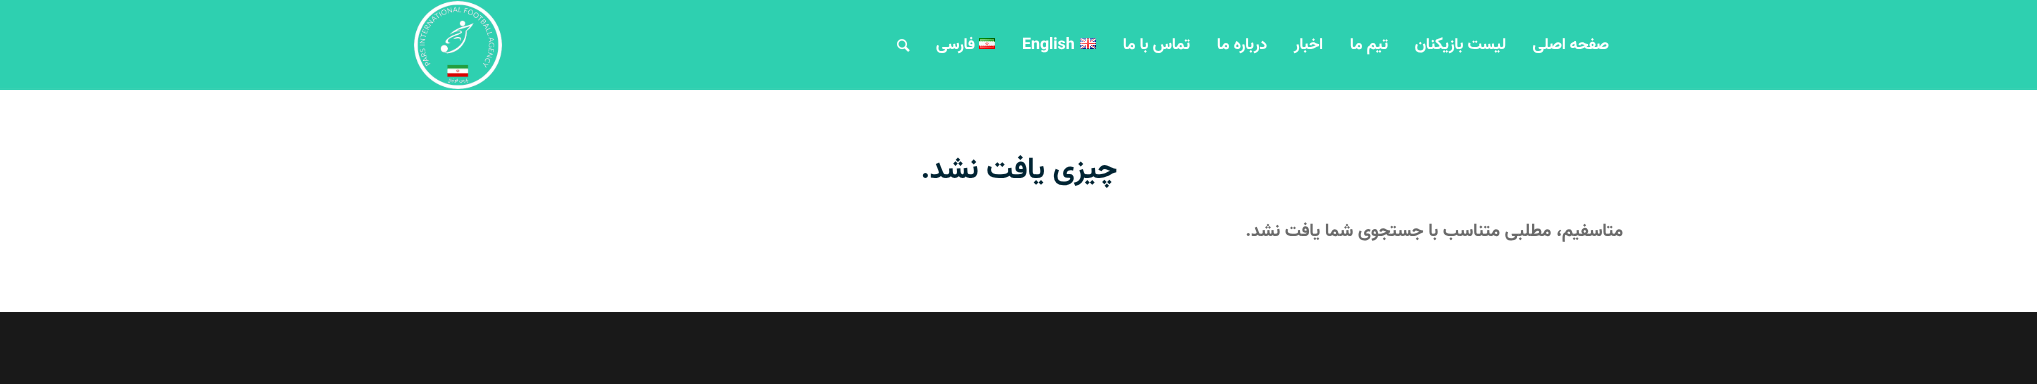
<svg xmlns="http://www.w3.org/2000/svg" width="2037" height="384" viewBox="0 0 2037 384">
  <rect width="100%" height="100%" fill="#191919"/>
  <rect x="0" y="89" width="2037" height="1" fill="#2ed0b0"/>
  <rect x="0" y="0" width="2037" height="88" fill="#2ed0b0"/>
  <text x="1609" y="49" font-family="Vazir" font-size="16" font-weight="bold" direction="rtl" fill="#ffffff">صفحه اصلی</text>
  <text x="1506" y="49" font-family="Vazir" font-size="16" font-weight="bold" direction="rtl" fill="#ffffff">لیست بازیکنان</text>
  <text x="1388" y="49" font-family="Vazir" font-size="16" font-weight="bold" direction="rtl" fill="#ffffff">تیم ما</text>
  <text x="1323" y="49" font-family="Vazir" font-size="16" font-weight="bold" direction="rtl" fill="#ffffff">اخبار</text>
  <text x="1267" y="49" font-family="Vazir" font-size="16" font-weight="bold" direction="rtl" fill="#ffffff">درباره ما</text>
  <text x="1190" y="49" font-family="Vazir" font-size="16" font-weight="bold" direction="rtl" fill="#ffffff">تماس با ما</text>
  <image x="1080" y="38" width="16" height="11" href="img1.png"/>
  <text x="1022" y="49" font-family="Vazir" font-size="16" font-weight="bold" fill="#ffffff">English</text>
  <image x="979" y="38" width="16" height="11" href="img2.png"/>
  <text x="975" y="49" font-family="Vazir" font-size="16" font-weight="bold" direction="rtl" fill="#ffffff">فارسی</text>
  <image x="897" y="39" width="13" height="13" href="img3.png"/>
  <rect x="0" y="88" width="2037" height="1" fill="#37d1b2"/>
  <image x="414" y="1" width="88" height="88" href="img4.png"/>
  <rect x="0" y="90" width="2037" height="222" fill="#ffffff"/>
  <text x="1117" y="178" font-family="Vazir" font-size="30" font-weight="bold" direction="rtl" fill="#002332">چیزی یافت نشد.</text>
  <text x="1623" y="236" font-family="Vazir" font-size="18" font-weight="bold" direction="rtl" fill="#696969">متاسفیم، مطلبی متناسب با جستجوی شما یافت نشد.</text>
</svg>
